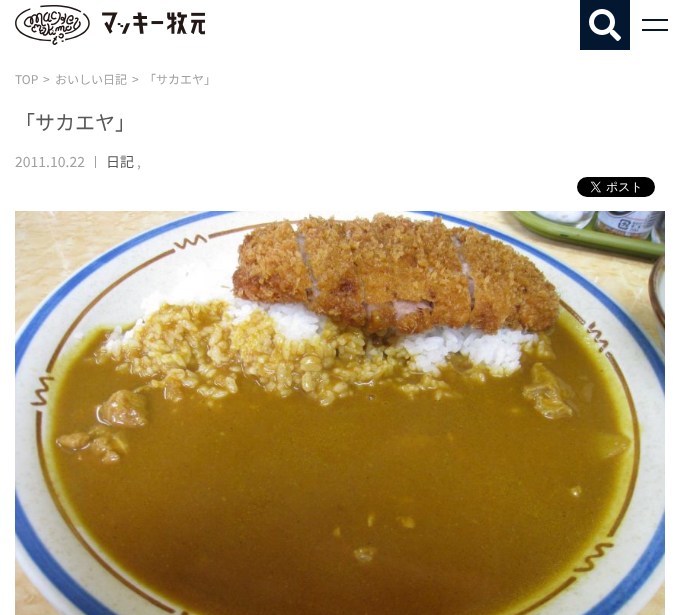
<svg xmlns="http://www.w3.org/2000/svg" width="680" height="615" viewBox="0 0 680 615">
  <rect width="100%" height="100%" fill="#ffffff"/>
  <image x="15" y="5" width="190" height="40" href="img1.png"/>
  <rect x="580" y="0" width="50" height="50" fill="#031731"/>
  <image x="589" y="9" width="32" height="32" href="img2.png"/>
  <rect x="642" y="19" width="26" height="2" fill="#031731"/>
  <rect x="642" y="29" width="26" height="2" fill="#031731"/>
  <text x="15" y="84" font-family="Noto Sans JP" font-size="12" fill="#9fa0a0">TOP</text>
  <text x="43" y="84" font-family="Noto Sans JP" font-size="12" fill="#9fa0a0">&gt;</text>
  <text x="55" y="84" font-family="Noto Sans JP" font-size="12" fill="#9fa0a0">おいしい日記</text>
  <text x="132" y="84" font-family="Noto Sans JP" font-size="12" fill="#9fa0a0">&gt;</text>
  <text x="144" y="84" font-family="Noto Sans JP" font-size="12" fill="#9fa0a0">「サカエヤ」</text>
  <text x="15" y="130" font-family="Noto Sans JP" font-size="20" fill="#595757">「サカエヤ」</text>
  <text x="15" y="167" font-family="Noto Sans JP" font-size="14" fill="#9fa0a0">2011.10.22</text>
  <rect x="95" y="156" width="1" height="12" fill="#9fa0a0"/>
  <text x="106" y="167" font-family="Noto Sans JP" font-size="14" fill="#595757">日記</text>
  <text x="137" y="167" font-family="Noto Sans JP" font-size="14" fill="#9fa0a0">,</text>
  <image x="577" y="177" width="78" height="20" href="img3.png"/>
  <image x="15" y="211" width="650" height="404" href="img4.png"/>
</svg>
